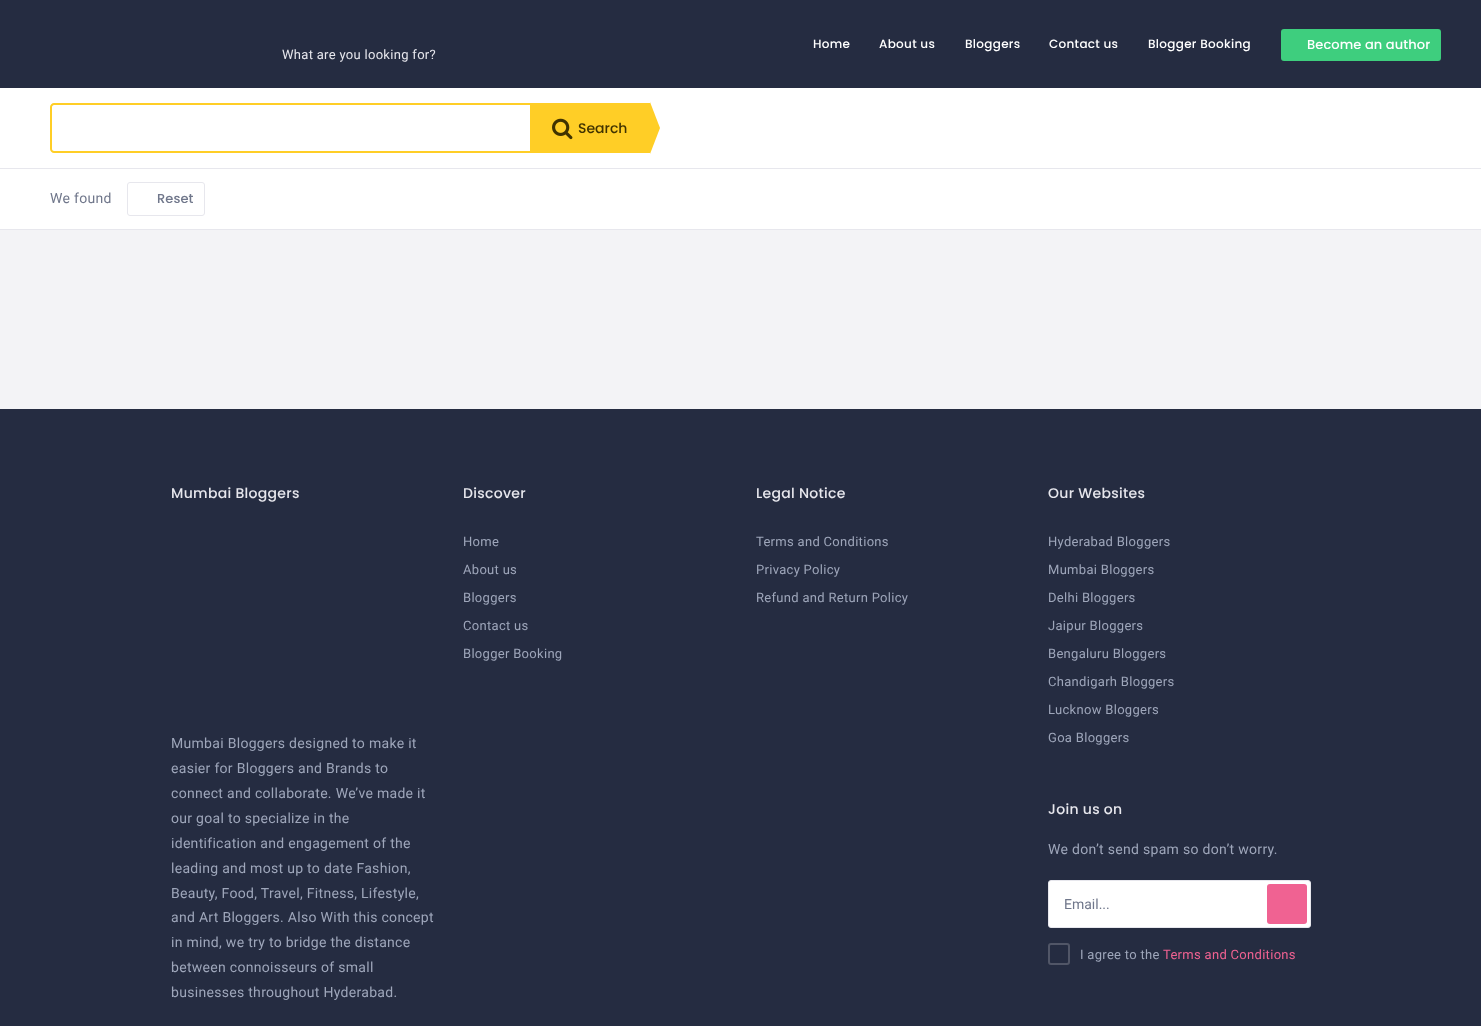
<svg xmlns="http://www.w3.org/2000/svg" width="1481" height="1026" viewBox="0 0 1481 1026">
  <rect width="100%" height="100%" fill="#ffffff"/>
  <rect x="0" y="0" width="1481" height="88" fill="#252c41"/>
  <text x="813" y="48" font-family="Poppins" font-size="12" font-weight="500" letter-spacing="0.3" fill="#ffffff">Home</text>
  <text x="879" y="48" font-family="Poppins" font-size="12" font-weight="500" letter-spacing="0.3" fill="#ffffff">About us</text>
  <text x="965" y="48" font-family="Poppins" font-size="12" font-weight="500" letter-spacing="0.3" fill="#ffffff">Bloggers</text>
  <text x="1049" y="48" font-family="Poppins" font-size="12" font-weight="500" letter-spacing="0.3" fill="#ffffff">Contact us</text>
  <text x="1148" y="48" font-family="Poppins" font-size="12" font-weight="500" letter-spacing="0.3" fill="#ffffff">Blogger Booking</text>
  <rect x="1281" y="29" width="160" height="32" rx="3" fill="#3ece7e"/>
  <text x="1307" y="49" font-family="Poppins" font-size="13" font-weight="500" letter-spacing="0.1" fill="#ffffff">Become an author</text>
  <text x="282" y="59" font-family="Roboto" font-size="13" letter-spacing="0.3" fill="#e7e7ed">What are you looking for?</text>
  <rect x="0" y="168" width="1481" height="1" fill="#e7e7ed"/>
  <path d="M54 103H530V153H54C52 153 50 151 50 149V107C50 105 52 103 54 103ZM54 105H530V151H54C53 151 52 150 52 149V107C52 106 53 105 54 105Z" fill="#ffce26" fill-rule="evenodd"/>
  <rect x="530" y="103" width="120" height="50" fill="#ffce26"/>
  <image x="552" y="118" width="21" height="22" href="img1.png"/>
  <text x="578" y="133" font-family="Poppins" font-size="14" font-weight="500" fill="#403300">Search</text>
  <path d="M650 154V102L660 128Z" fill="#ffce26"/>
  <rect x="0" y="230" width="1481" height="179" fill="#f3f3f6"/>
  <rect x="0" y="229" width="1481" height="1" fill="#e7e7ed"/>
  <text x="50" y="203" font-family="Roboto" font-size="14" letter-spacing="0.3" fill="#70778b">We found</text>
  <rect x="127.5" y="182.5" width="77" height="33" rx="2.5" fill="none" stroke="#e7e7ed"/>
  <text x="157" y="203" font-family="Poppins" font-size="13" font-weight="500" letter-spacing="0.1" fill="#70778b">Reset</text>
  <rect x="0" y="409" width="1481" height="617" fill="#252c41"/>
  <text x="171" y="498" font-family="Poppins" font-size="14" font-weight="500" letter-spacing="0.3" fill="#e7e7ed">Mumbai Bloggers</text>
  <text x="171" y="748" font-family="Roboto" font-size="14" letter-spacing="0.3" fill="#9ea6ba">Mumbai Bloggers designed to make it</text>
  <text x="171" y="773" font-family="Roboto" font-size="14" letter-spacing="0.3" fill="#9ea6ba">easier for Bloggers and Brands to</text>
  <text x="171" y="798" font-family="Roboto" font-size="14" letter-spacing="0.3" fill="#9ea6ba">connect and collaborate. We’ve made it</text>
  <text x="171" y="823" font-family="Roboto" font-size="14" letter-spacing="0.3" fill="#9ea6ba">our goal to specialize in the</text>
  <text x="171" y="848" font-family="Roboto" font-size="14" letter-spacing="0.3" fill="#9ea6ba">identification and engagement of the</text>
  <text x="171" y="873" font-family="Roboto" font-size="14" letter-spacing="0.3" fill="#9ea6ba">leading and most up to date Fashion,</text>
  <text x="171" y="898" font-family="Roboto" font-size="14" letter-spacing="0.3" fill="#9ea6ba">Beauty, Food, Travel, Fitness, Lifestyle,</text>
  <text x="171" y="922" font-family="Roboto" font-size="14" letter-spacing="0.3" fill="#9ea6ba">and Art Bloggers. Also With this concept</text>
  <text x="171" y="947" font-family="Roboto" font-size="14" letter-spacing="0.3" fill="#9ea6ba">in mind, we try to bridge the distance</text>
  <text x="171" y="972" font-family="Roboto" font-size="14" letter-spacing="0.3" fill="#9ea6ba">between connoisseurs of small</text>
  <text x="171" y="997" font-family="Roboto" font-size="14" letter-spacing="0.3" fill="#9ea6ba">businesses throughout Hyderabad.</text>
  <text x="463" y="498" font-family="Poppins" font-size="14" font-weight="500" letter-spacing="0.3" fill="#e7e7ed">Discover</text>
  <text x="463" y="546" font-family="Roboto" font-size="13" letter-spacing="0.3" fill="#9ea6ba">Home</text>
  <text x="463" y="574" font-family="Roboto" font-size="13" letter-spacing="0.3" fill="#9ea6ba">About us</text>
  <text x="463" y="602" font-family="Roboto" font-size="13" letter-spacing="0.3" fill="#9ea6ba">Bloggers</text>
  <text x="463" y="630" font-family="Roboto" font-size="13" letter-spacing="0.3" fill="#9ea6ba">Contact us</text>
  <text x="463" y="658" font-family="Roboto" font-size="13" letter-spacing="0.3" fill="#9ea6ba">Blogger Booking</text>
  <text x="756" y="498" font-family="Poppins" font-size="14" font-weight="500" letter-spacing="0.3" fill="#e7e7ed">Legal Notice</text>
  <text x="756" y="546" font-family="Roboto" font-size="13" letter-spacing="0.3" fill="#9ea6ba">Terms and Conditions</text>
  <text x="756" y="574" font-family="Roboto" font-size="13" letter-spacing="0.3" fill="#9ea6ba">Privacy Policy</text>
  <text x="756" y="602" font-family="Roboto" font-size="13" letter-spacing="0.3" fill="#9ea6ba">Refund and Return Policy</text>
  <text x="1048" y="498" font-family="Poppins" font-size="14" font-weight="500" letter-spacing="0.3" fill="#e7e7ed">Our Websites</text>
  <text x="1048" y="546" font-family="Roboto" font-size="13" letter-spacing="0.3" fill="#9ea6ba">Hyderabad Bloggers</text>
  <text x="1048" y="574" font-family="Roboto" font-size="13" letter-spacing="0.3" fill="#9ea6ba">Mumbai Bloggers</text>
  <text x="1048" y="602" font-family="Roboto" font-size="13" letter-spacing="0.3" fill="#9ea6ba">Delhi Bloggers</text>
  <text x="1048" y="630" font-family="Roboto" font-size="13" letter-spacing="0.3" fill="#9ea6ba">Jaipur Bloggers</text>
  <text x="1048" y="658" font-family="Roboto" font-size="13" letter-spacing="0.3" fill="#9ea6ba">Bengaluru Bloggers</text>
  <text x="1048" y="686" font-family="Roboto" font-size="13" letter-spacing="0.3" fill="#9ea6ba">Chandigarh Bloggers</text>
  <text x="1048" y="714" font-family="Roboto" font-size="13" letter-spacing="0.3" fill="#9ea6ba">Lucknow Bloggers</text>
  <text x="1048" y="742" font-family="Roboto" font-size="13" letter-spacing="0.3" fill="#9ea6ba">Goa Bloggers</text>
  <text x="1048" y="814" font-family="Poppins" font-size="14" font-weight="500" letter-spacing="0.3" fill="#e7e7ed">Join us on</text>
  <text x="1048" y="854" font-family="Roboto" font-size="14" letter-spacing="0.3" fill="#9ea6ba">We don’t send spam so don’t worry.</text>
  <rect x="1048.5" y="880.5" width="262" height="47" rx="2.5" fill="#ffffff" stroke="#e7e7ed"/>
  <text x="1064" y="909" font-family="Roboto" font-size="14" fill="#70778b">Email...</text>
  <rect x="1267" y="884" width="40" height="40" rx="3" fill="#f06292"/>
  <rect x="1049" y="944" width="20" height="20" rx="2" fill="none" stroke="#515667" stroke-width="2"/>
  <text x="1080" y="959" font-family="Roboto" font-size="13" letter-spacing="0.3" fill="#9ea6ba">I agree to the</text>
  <text x="1163" y="959" font-family="Roboto" font-size="13" letter-spacing="0.3" fill="#f06292">Terms and Conditions</text>
</svg>
